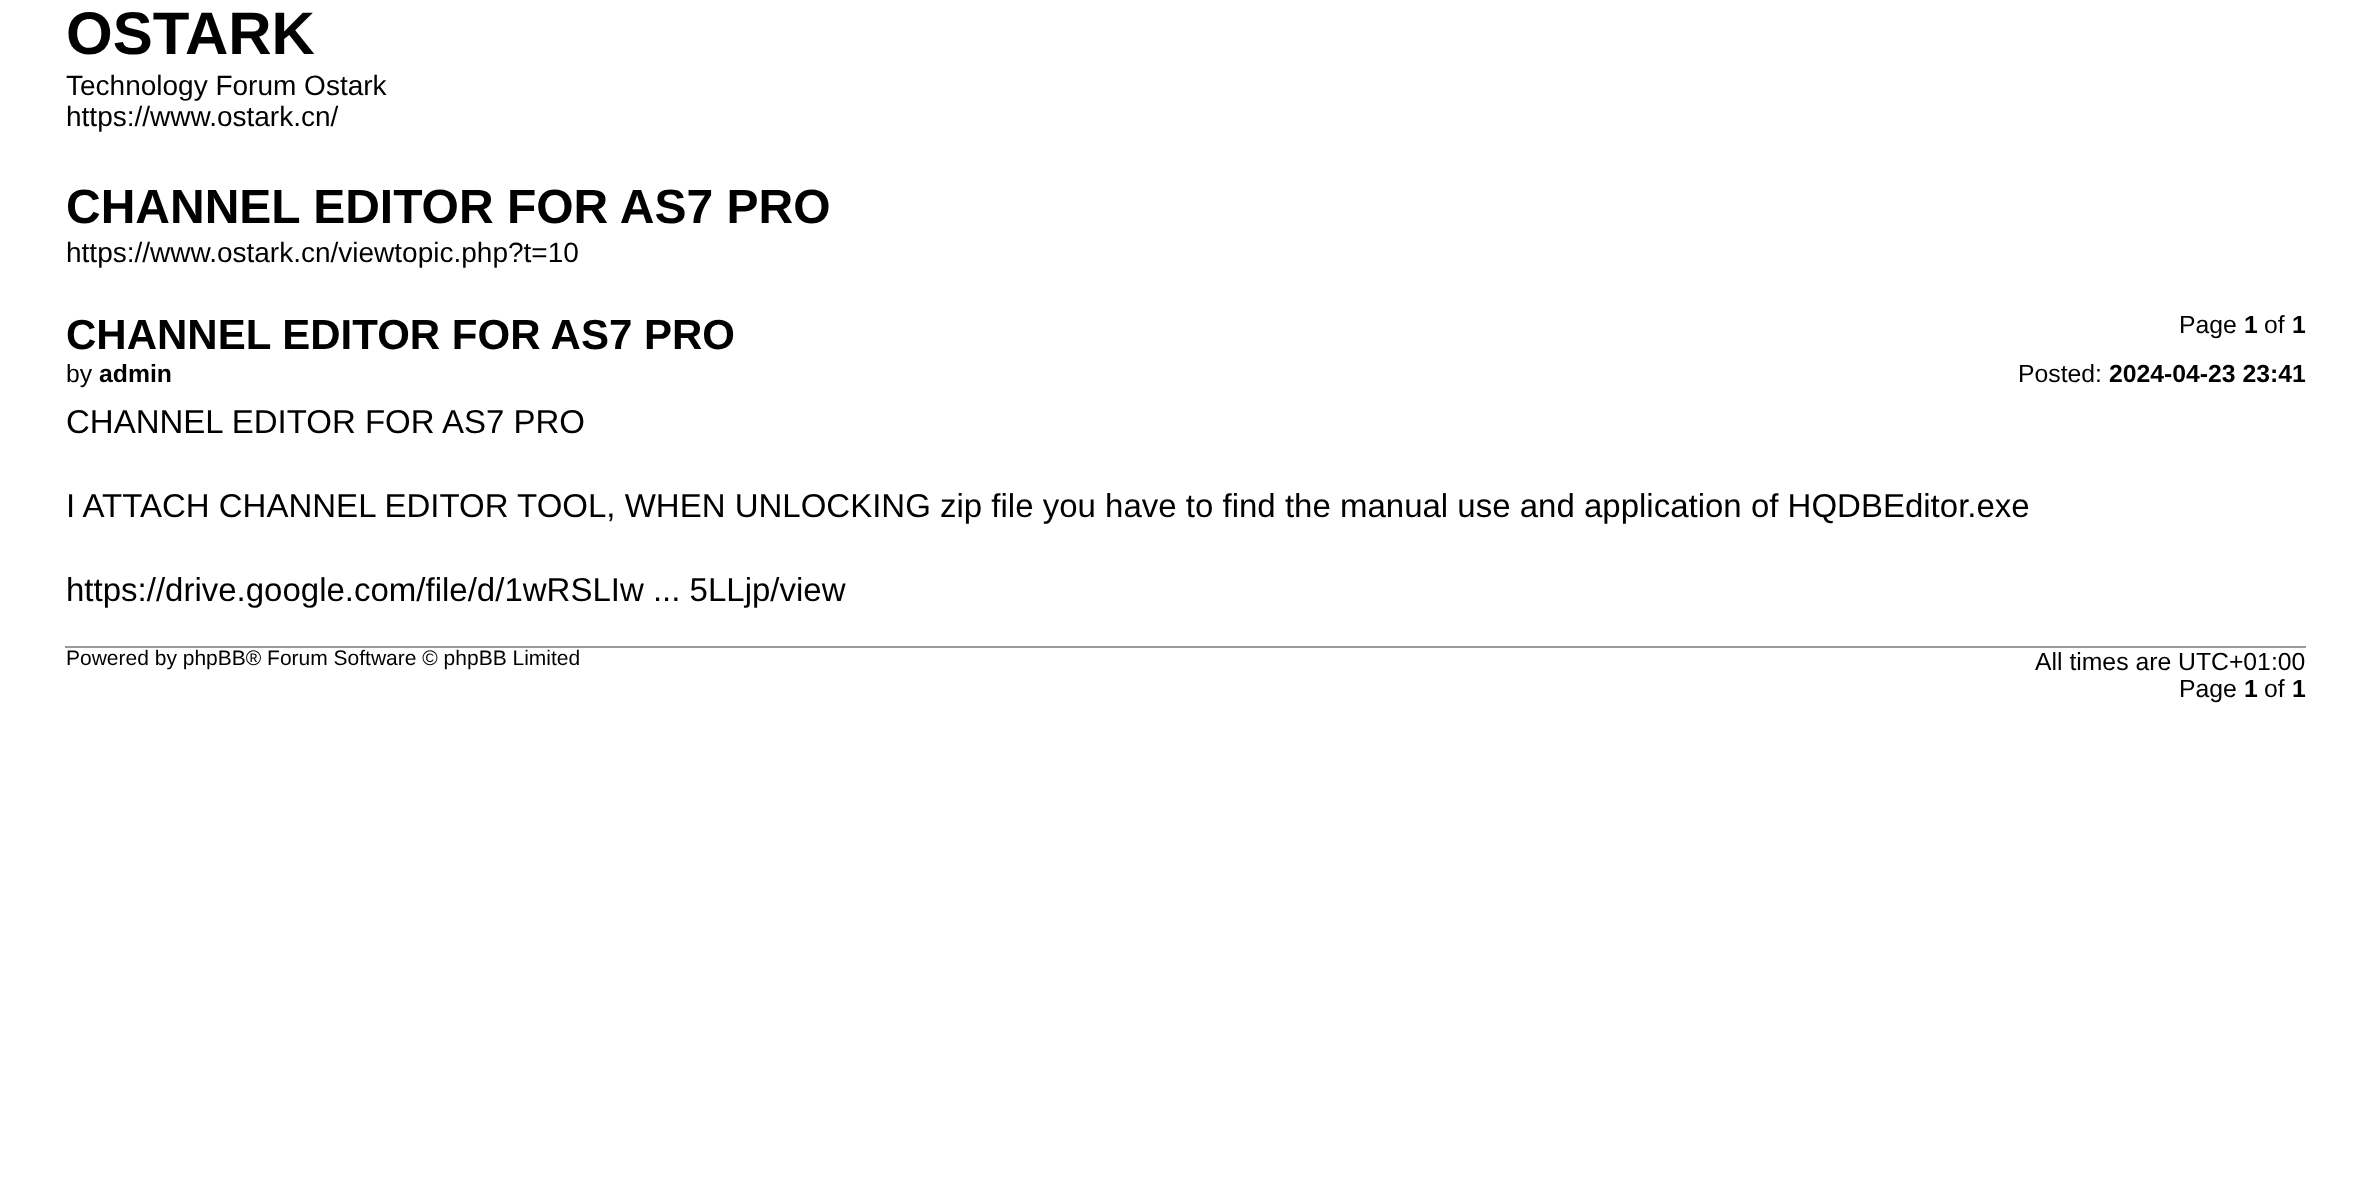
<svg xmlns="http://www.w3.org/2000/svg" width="2371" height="1190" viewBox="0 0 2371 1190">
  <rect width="100%" height="100%" fill="#ffffff"/>
  <text x="66" y="54" font-family="Liberation Sans" font-size="60" font-weight="bold" fill="#000000">OSTARK</text>
  <text x="66" y="95" font-family="Liberation Sans" font-size="28" fill="#000000">Technology Forum Ostark</text>
  <text x="66" y="126" font-family="Liberation Sans" font-size="28" fill="#000000">https://www.ostark.cn/</text>
  <text x="66" y="223" font-family="Liberation Sans" font-size="48" font-weight="bold" fill="#000000">CHANNEL EDITOR FOR AS7 PRO</text>
  <text x="66" y="262" font-family="Liberation Sans" font-size="28" fill="#000000">https://www.ostark.cn/viewtopic.php?t=10</text>
  <text x="2179" y="333" font-family="Liberation Sans" font-size="24.75" fill="#000000">Page</text>
  <text x="2244" y="333" font-family="Liberation Sans" font-size="24.75" font-weight="bold" fill="#000000">1</text>
  <text x="2264" y="333" font-family="Liberation Sans" font-size="24.75" fill="#000000">of</text>
  <text x="2292" y="333" font-family="Liberation Sans" font-size="24.75" font-weight="bold" fill="#000000">1</text>
  <text x="66" y="349" font-family="Liberation Sans" font-size="42" font-weight="bold" fill="#000000">CHANNEL EDITOR FOR AS7 PRO</text>
  <text x="66" y="382" font-family="Liberation Sans" font-size="24.75" fill="#000000">by</text>
  <text x="99" y="382" font-family="Liberation Sans" font-size="24.75" font-weight="bold" fill="#000000">admin</text>
  <text x="2018" y="382" font-family="Liberation Sans" font-size="24.75" fill="#000000">Posted:</text>
  <text x="2109" y="382" font-family="Liberation Sans" font-size="24.75" font-weight="bold" fill="#000000">2024-04-23 23:41</text>
  <text x="66" y="433" font-family="Liberation Sans" font-size="33" fill="#000000">CHANNEL EDITOR FOR AS7 PRO</text>
  <text x="66" y="517" font-family="Liberation Sans" font-size="33" fill="#000000">I ATTACH CHANNEL EDITOR TOOL, WHEN UNLOCKING zip file you have to find the manual use and application of HQDBEditor.exe</text>
  <text x="66" y="601" font-family="Liberation Sans" font-size="33" fill="#000000">https://drive.google.com/file/d/1wRSLIw ... 5LLjp/view</text>
  <rect x="65" y="646" width="2241" height="2" fill="#999999"/>
  <text x="66" y="665" font-family="Liberation Sans" font-size="21" fill="#000000">Powered by phpBB® Forum Software © phpBB Limited</text>
  <text x="2035" y="670" font-family="Liberation Sans" font-size="24.75" fill="#000000">All times are UTC+01:00</text>
  <text x="2179" y="697" font-family="Liberation Sans" font-size="24.75" fill="#000000">Page</text>
  <text x="2244" y="697" font-family="Liberation Sans" font-size="24.75" font-weight="bold" fill="#000000">1</text>
  <text x="2264" y="697" font-family="Liberation Sans" font-size="24.75" fill="#000000">of</text>
  <text x="2292" y="697" font-family="Liberation Sans" font-size="24.75" font-weight="bold" fill="#000000">1</text>
</svg>
